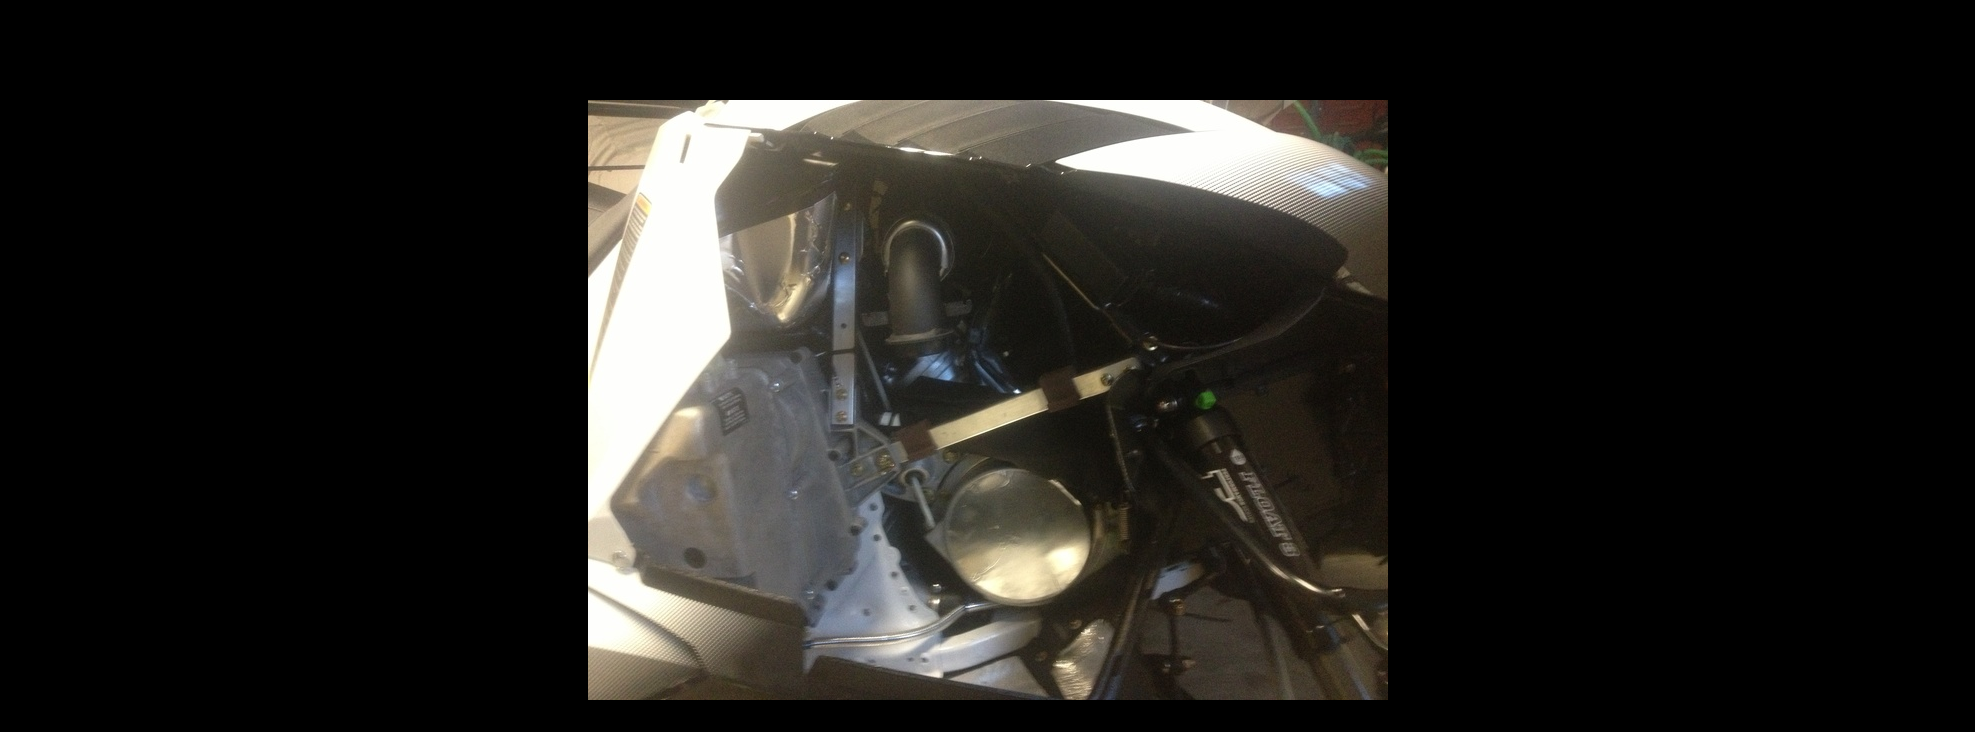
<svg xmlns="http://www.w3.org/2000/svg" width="1975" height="732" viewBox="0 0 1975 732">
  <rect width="100%" height="100%" fill="#000000"/>
  <image x="588" y="100" width="800" height="600" href="img1.png"/>
</svg>
